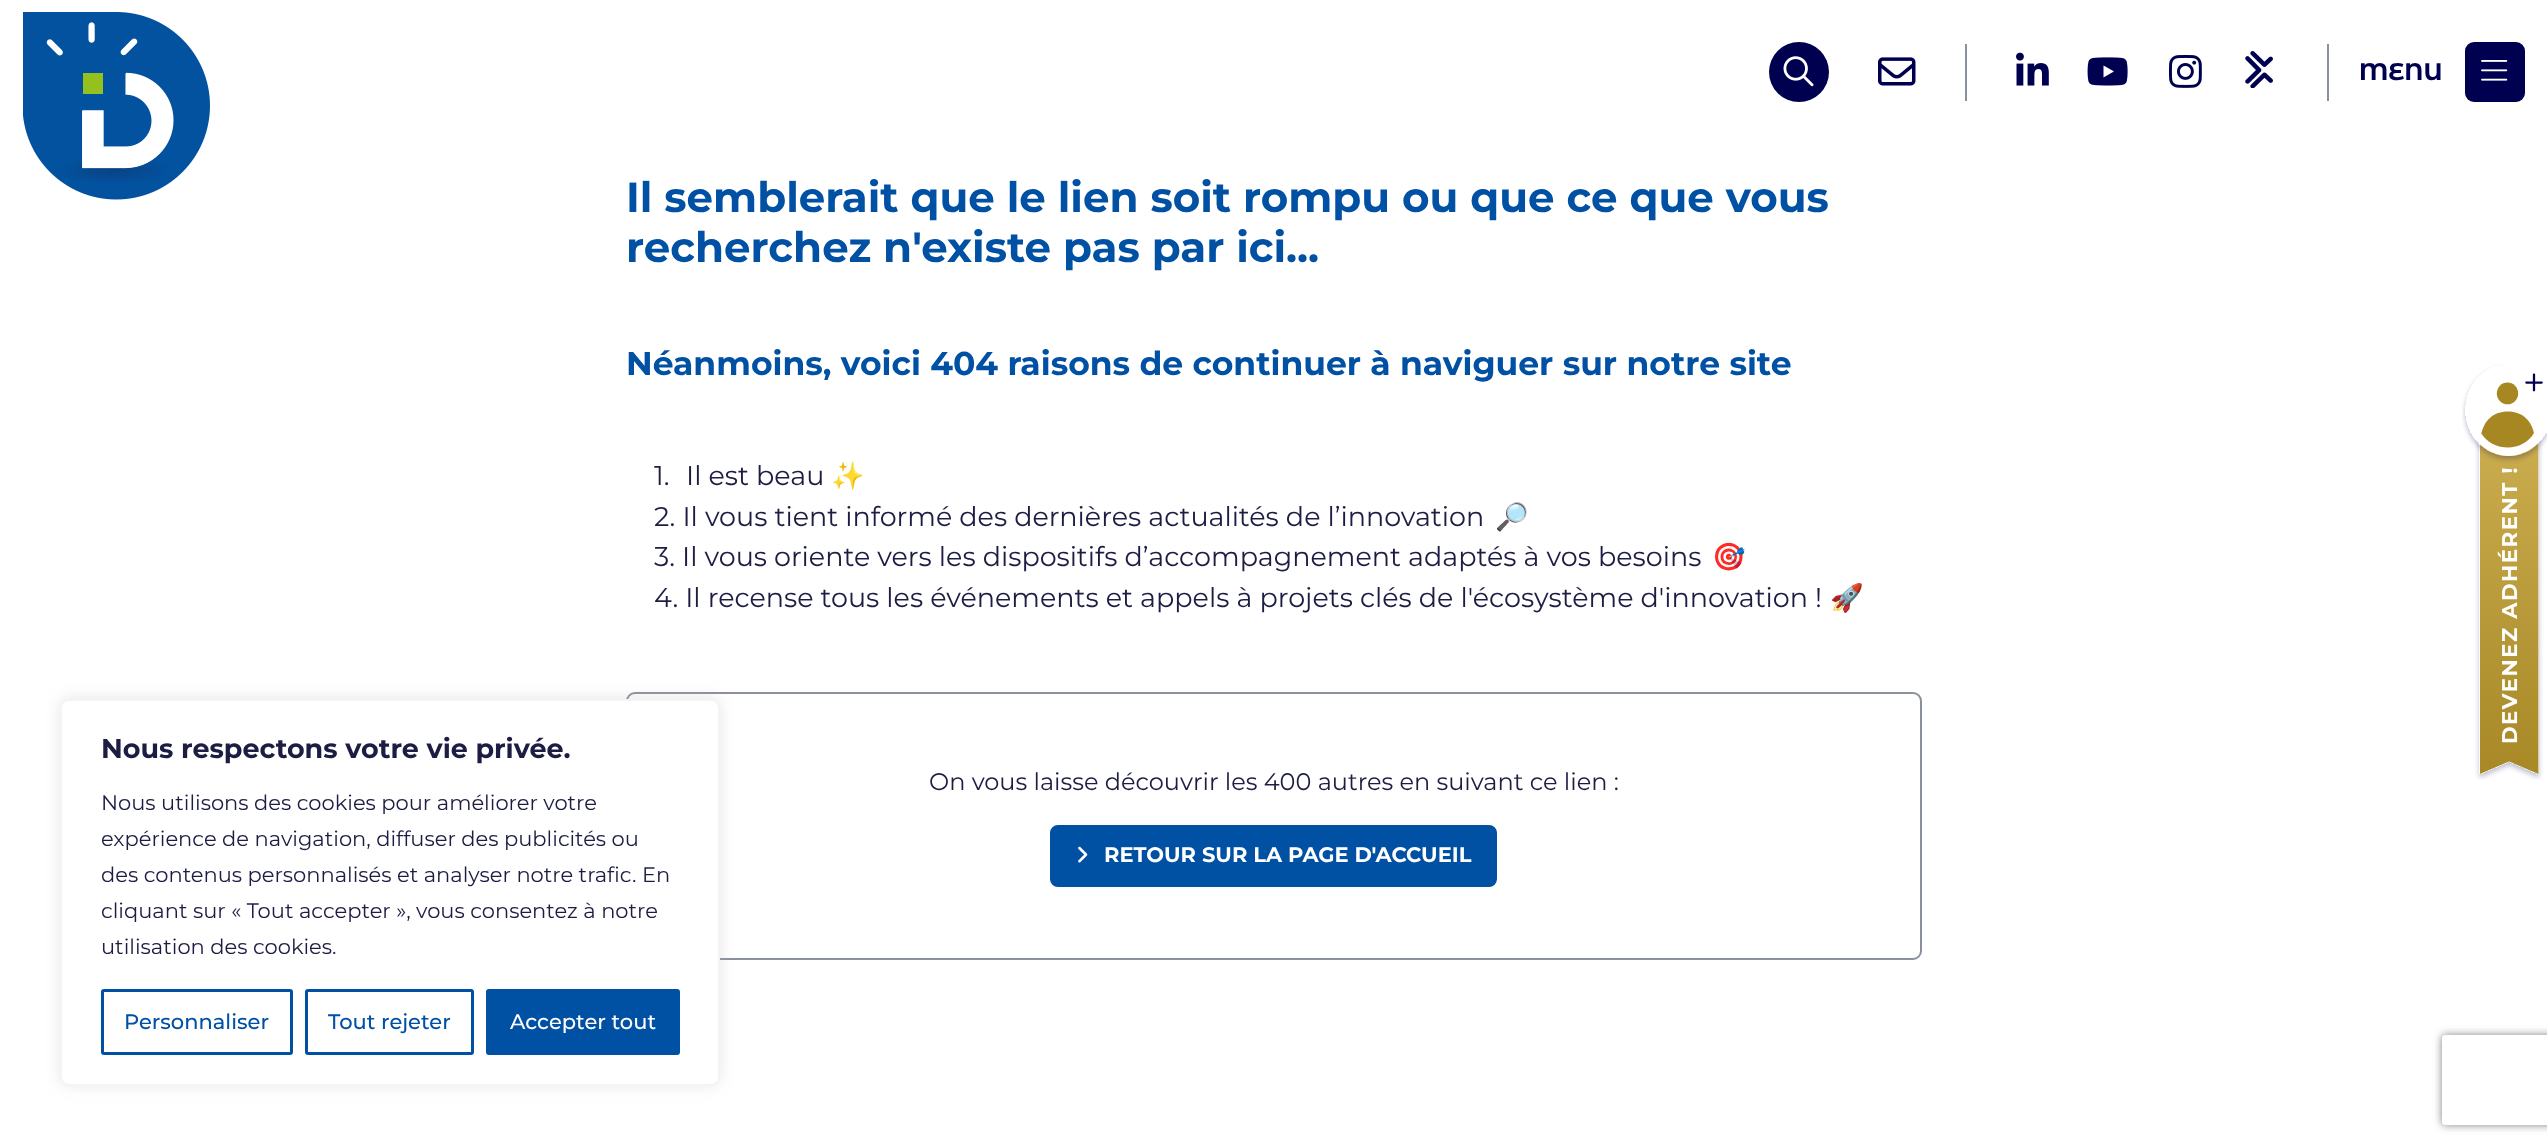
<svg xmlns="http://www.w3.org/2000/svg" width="2547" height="1146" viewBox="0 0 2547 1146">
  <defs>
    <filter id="blur1" x="-50%" y="-200%" width="200%" height="500%"><feGaussianBlur stdDeviation="7.5"/></filter>
    <clipPath id="clip1"><path d="M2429 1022H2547V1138H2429ZM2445 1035H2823C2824.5 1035 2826 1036.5 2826 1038V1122C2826 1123.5 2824.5 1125 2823 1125H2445C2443.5 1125 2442 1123.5 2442 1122V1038C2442 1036.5 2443.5 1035 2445 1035Z" clip-rule="evenodd"/></clipPath>
    <filter id="blur2" x="-50%" y="-200%" width="200%" height="500%"><feGaussianBlur stdDeviation="4"/></filter>
  </defs>
  <rect width="100%" height="100%" fill="#ffffff"/>
  <image x="23" y="12" width="187" height="188" href="img1.png"/>
  <circle cx="1799" cy="72" r="30" fill="#000050"/>
  <image x="1783" y="56" width="31" height="31" href="img2.png"/>
  <image x="1878" y="57" width="38" height="29" href="img3.png"/>
  <rect x="2327" y="44" width="2" height="57" fill="#8b919c"/>
  <rect x="1965" y="44" width="2" height="57" fill="#8b919c"/>
  <image x="2016" y="52" width="33" height="34" href="img4.png"/>
  <image x="2087" y="57" width="41" height="29" href="img5.png"/>
  <image x="2169" y="55" width="33" height="33" href="img6.png"/>
  <image x="2245" y="51" width="28" height="37" href="img7.png"/>
  <text x="2359" y="80" font-family="Montserrat Alternates" font-size="24" font-weight="bold" fill="#000050">MENU</text>
  <rect x="2465" y="42" width="60" height="60" rx="9" fill="#000050"/>
  <image x="2481" y="60" width="27" height="21" href="img8.png"/>
  <text x="626" y="212" font-family="Montserrat" font-size="42" font-weight="bold" fill="#0050a4">Il semblerait que le lien soit rompu ou que ce que vous</text>
  <text x="626" y="262" font-family="Montserrat" font-size="42" font-weight="bold" fill="#0050a4">recherchez n'existe pas par ici...</text>
  <text x="626" y="375" font-family="Montserrat" font-size="33" font-weight="bold" fill="#0050a4">Néanmoins, voici 404 raisons de continuer à naviguer sur notre site</text>
  <text x="654" y="485" font-family="Montserrat" font-size="27" fill="#1d1d44">1.</text>
  <text x="686" y="485" font-family="Montserrat" font-size="27" fill="#1d1d44">Il est beau</text>
  <text x="831" y="485" font-family="Noto Color Emoji" font-size="27" fill="#1d1d44">✨</text>
  <text x="654" y="526" font-family="Montserrat" font-size="27" fill="#1d1d44">2. Il vous tient informé des dernières actualités de l’innovation</text>
  <text x="1495" y="526" font-family="Noto Color Emoji" font-size="27" fill="#1d1d44">🔎</text>
  <text x="654" y="566" font-family="Montserrat" font-size="27" fill="#1d1d44">3. Il vous oriente vers les dispositifs d’accompagnement adaptés à vos besoins</text>
  <text x="1712" y="566" font-family="Noto Color Emoji" font-size="27" fill="#1d1d44">🎯</text>
  <text x="654" y="607" font-family="Montserrat" font-size="27" fill="#1d1d44">4. Il recense tous les événements et appels à projets clés de l'écosystème d'innovation !</text>
  <text x="1830" y="607" font-family="Noto Color Emoji" font-size="27" fill="#1d1d44">🚀</text>
  <rect x="627" y="693" width="1294" height="266" rx="8" fill="none" stroke="#8b919c" stroke-width="2"/>
  <text x="929" y="790" font-family="Montserrat" font-size="24" fill="#1d1d44">On vous laisse découvrir les 400 autres en suivant ce lien :</text>
  <rect x="1051" y="826" width="445" height="60" rx="7" fill="#0050a4" stroke="#0050a4" stroke-width="2"/>
  <image x="1078" y="846" width="10" height="17" href="img9.png"/>
  <text x="1104" y="862" font-family="Montserrat" font-size="21" font-weight="bold" fill="#ffffff">RETOUR SUR LA PAGE D'ACCUEIL</text>
  <image x="2462" y="364" width="85" height="416" href="img10.png"/>
  <rect x="60" y="698" width="660" height="387" rx="9" fill="#acabab" fill-opacity="0.3" filter="url(#blur1)"/>
  <rect x="61" y="700" width="658" height="385" rx="8" fill="#ffffff" stroke="#f4f4f4" stroke-width="2"/>
  <text x="101" y="758" font-family="Montserrat" font-size="27" font-weight="bold" fill="#1d1d44">Nous respectons votre vie privée.</text>
  <text x="101" y="810" font-family="Montserrat" font-size="21" fill="#1d1d44">Nous utilisons des cookies pour améliorer votre</text>
  <text x="101" y="846" font-family="Montserrat" font-size="21" fill="#1d1d44">expérience de navigation, diffuser des publicités ou</text>
  <text x="101" y="882" font-family="Montserrat" font-size="21" fill="#1d1d44">des contenus personnalisés et analyser notre trafic. En</text>
  <text x="101" y="918" font-family="Montserrat" font-size="21" fill="#1d1d44">cliquant sur « Tout accepter », vous consentez à notre</text>
  <text x="101" y="954" font-family="Montserrat" font-size="21" fill="#1d1d44">utilisation des cookies.</text>
  <rect x="102.5" y="990.5" width="189" height="63" rx="1.5" fill="none" stroke="#0050a4" stroke-width="3"/>
  <text x="124" y="1029" font-family="Montserrat" font-size="21" font-weight="500" fill="#0050a4">Personnaliser</text>
  <rect x="306.5" y="990.5" width="166" height="63" rx="1.5" fill="none" stroke="#0050a4" stroke-width="3"/>
  <text x="328" y="1029" font-family="Montserrat" font-size="21" font-weight="500" fill="#0050a4">Tout rejeter</text>
  <rect x="487.5" y="990.5" width="191" height="63" rx="1.5" fill="#0050a4" stroke="#0050a4" stroke-width="3"/>
  <text x="510" y="1029" font-family="Montserrat" font-size="21" font-weight="500" fill="#ffffff">Accepter tout</text>
  <g clip-path="url(#clip1)">
    <rect x="2442" y="1035" width="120" height="90" rx="3" fill="#808080" filter="url(#blur2)"/>
  </g>
</svg>
